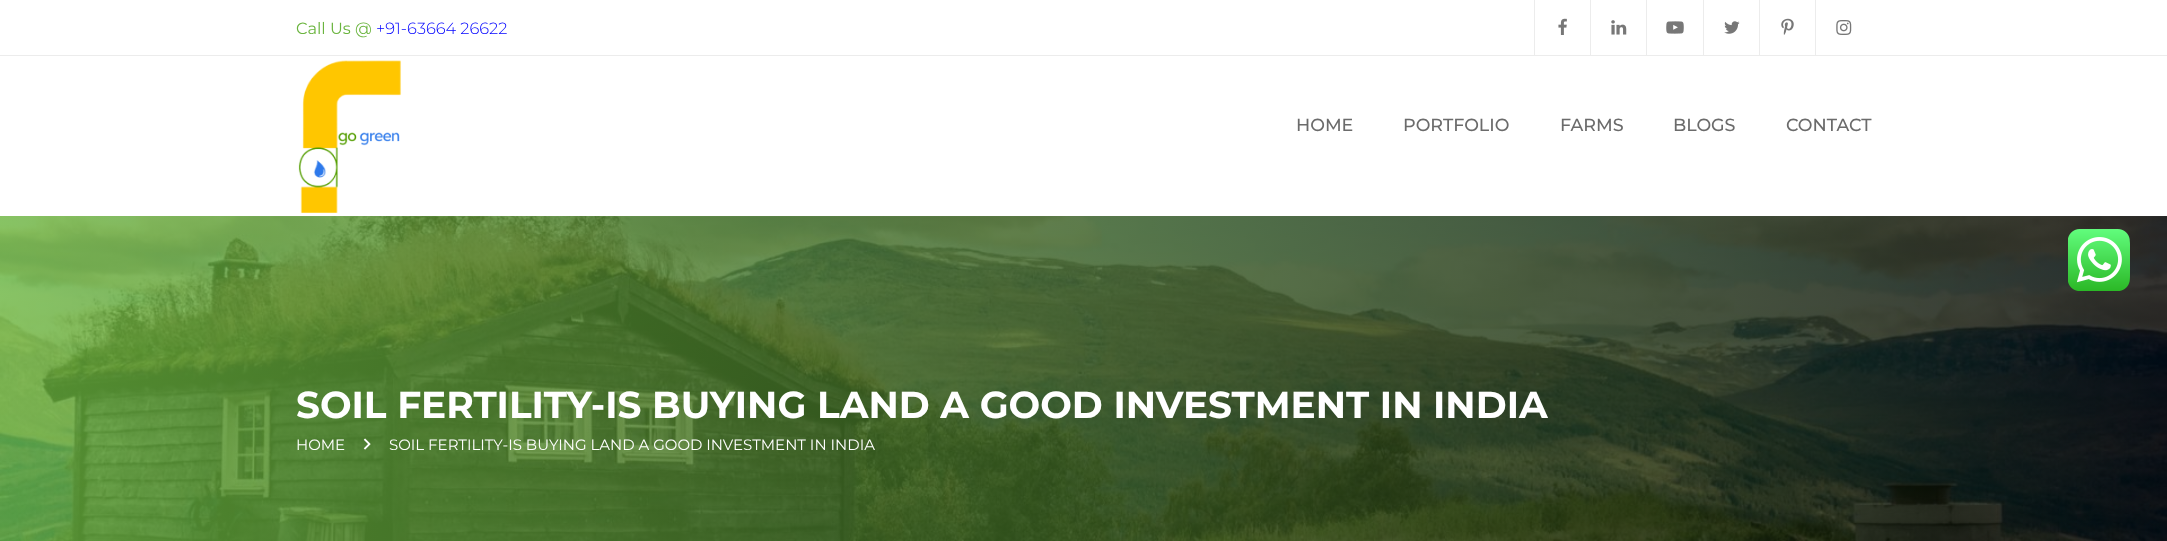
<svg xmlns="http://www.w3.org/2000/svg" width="2167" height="541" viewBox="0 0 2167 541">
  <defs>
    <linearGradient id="g1" gradientUnits="userSpaceOnUse" x1="0" y1="418" x2="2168" y2="417"><stop offset="0" stop-color="#6ab43e" stop-opacity="0.8"/><stop offset="1" stop-color="#000000" stop-opacity="0.8"/></linearGradient>
  </defs>
  <rect width="100%" height="100%" fill="#ffffff"/>
  <rect x="0" y="55" width="2167" height="1" fill="#ececec"/>
  <text x="296" y="34" font-family="Montserrat" font-size="16.25" fill="#6ab43e">Call Us @</text>
  <text x="376" y="34" font-family="Montserrat" font-size="16.25" font-weight="300" fill="#0000ff">+91-63664 26622</text>
  <rect x="1534" y="0" width="1" height="55" fill="#ececec"/>
  <image x="1558" y="18" width="9" height="17" href="img1.png"/>
  <rect x="1590" y="0" width="1" height="55" fill="#ececec"/>
  <image x="1611" y="20" width="16" height="15" href="img2.png"/>
  <rect x="1646" y="0" width="1" height="55" fill="#ececec"/>
  <image x="1666" y="21" width="18" height="13" href="img3.png"/>
  <rect x="1703" y="0" width="1" height="55" fill="#ececec"/>
  <image x="1724" y="21" width="16" height="13" href="img4.png"/>
  <rect x="1759" y="0" width="1" height="55" fill="#ececec"/>
  <image x="1781" y="18" width="13" height="17" href="img5.png"/>
  <rect x="1815" y="0" width="1" height="55" fill="#ececec"/>
  <image x="1836" y="20" width="16" height="15" href="img6.png"/>
  <image x="298" y="60" width="104" height="154" href="img7.png"/>
  <text x="1296" y="131" font-family="Montserrat" font-size="17.5" font-weight="500" fill="#6b6b6b">HOME</text>
  <text x="1403" y="131" font-family="Montserrat" font-size="17.5" font-weight="500" fill="#6b6b6b">PORTFOLIO</text>
  <text x="1560" y="131" font-family="Montserrat" font-size="17.5" font-weight="500" fill="#6b6b6b">FARMS</text>
  <text x="1673" y="131" font-family="Montserrat" font-size="17.5" font-weight="500" fill="#6b6b6b">BLOGS</text>
  <text x="1786" y="131" font-family="Montserrat" font-size="17.5" font-weight="500" fill="#6b6b6b">CONTACT</text>
  <image x="0" y="216" width="2167" height="325" href="img8.png"/>
  <rect x="0" y="216" width="2167" height="325" fill="url(#g1)"/>
  <text x="296" y="418" font-family="Montserrat" font-size="37.5" font-weight="bold" fill="#ffffff">SOIL FERTILITY-IS BUYING LAND A GOOD INVESTMENT IN INDIA</text>
  <text x="296" y="450" font-family="Montserrat" font-size="15" fill="#ffffff">HOME</text>
  <image x="363" y="438" width="8" height="12" href="img9.png"/>
  <text x="389" y="450" font-family="Montserrat" font-size="15" fill="#ffffff">SOIL FERTILITY-IS BUYING LAND A GOOD INVESTMENT IN INDIA</text>
  <image x="2068" y="229" width="62" height="62" href="img10.png"/>
</svg>
